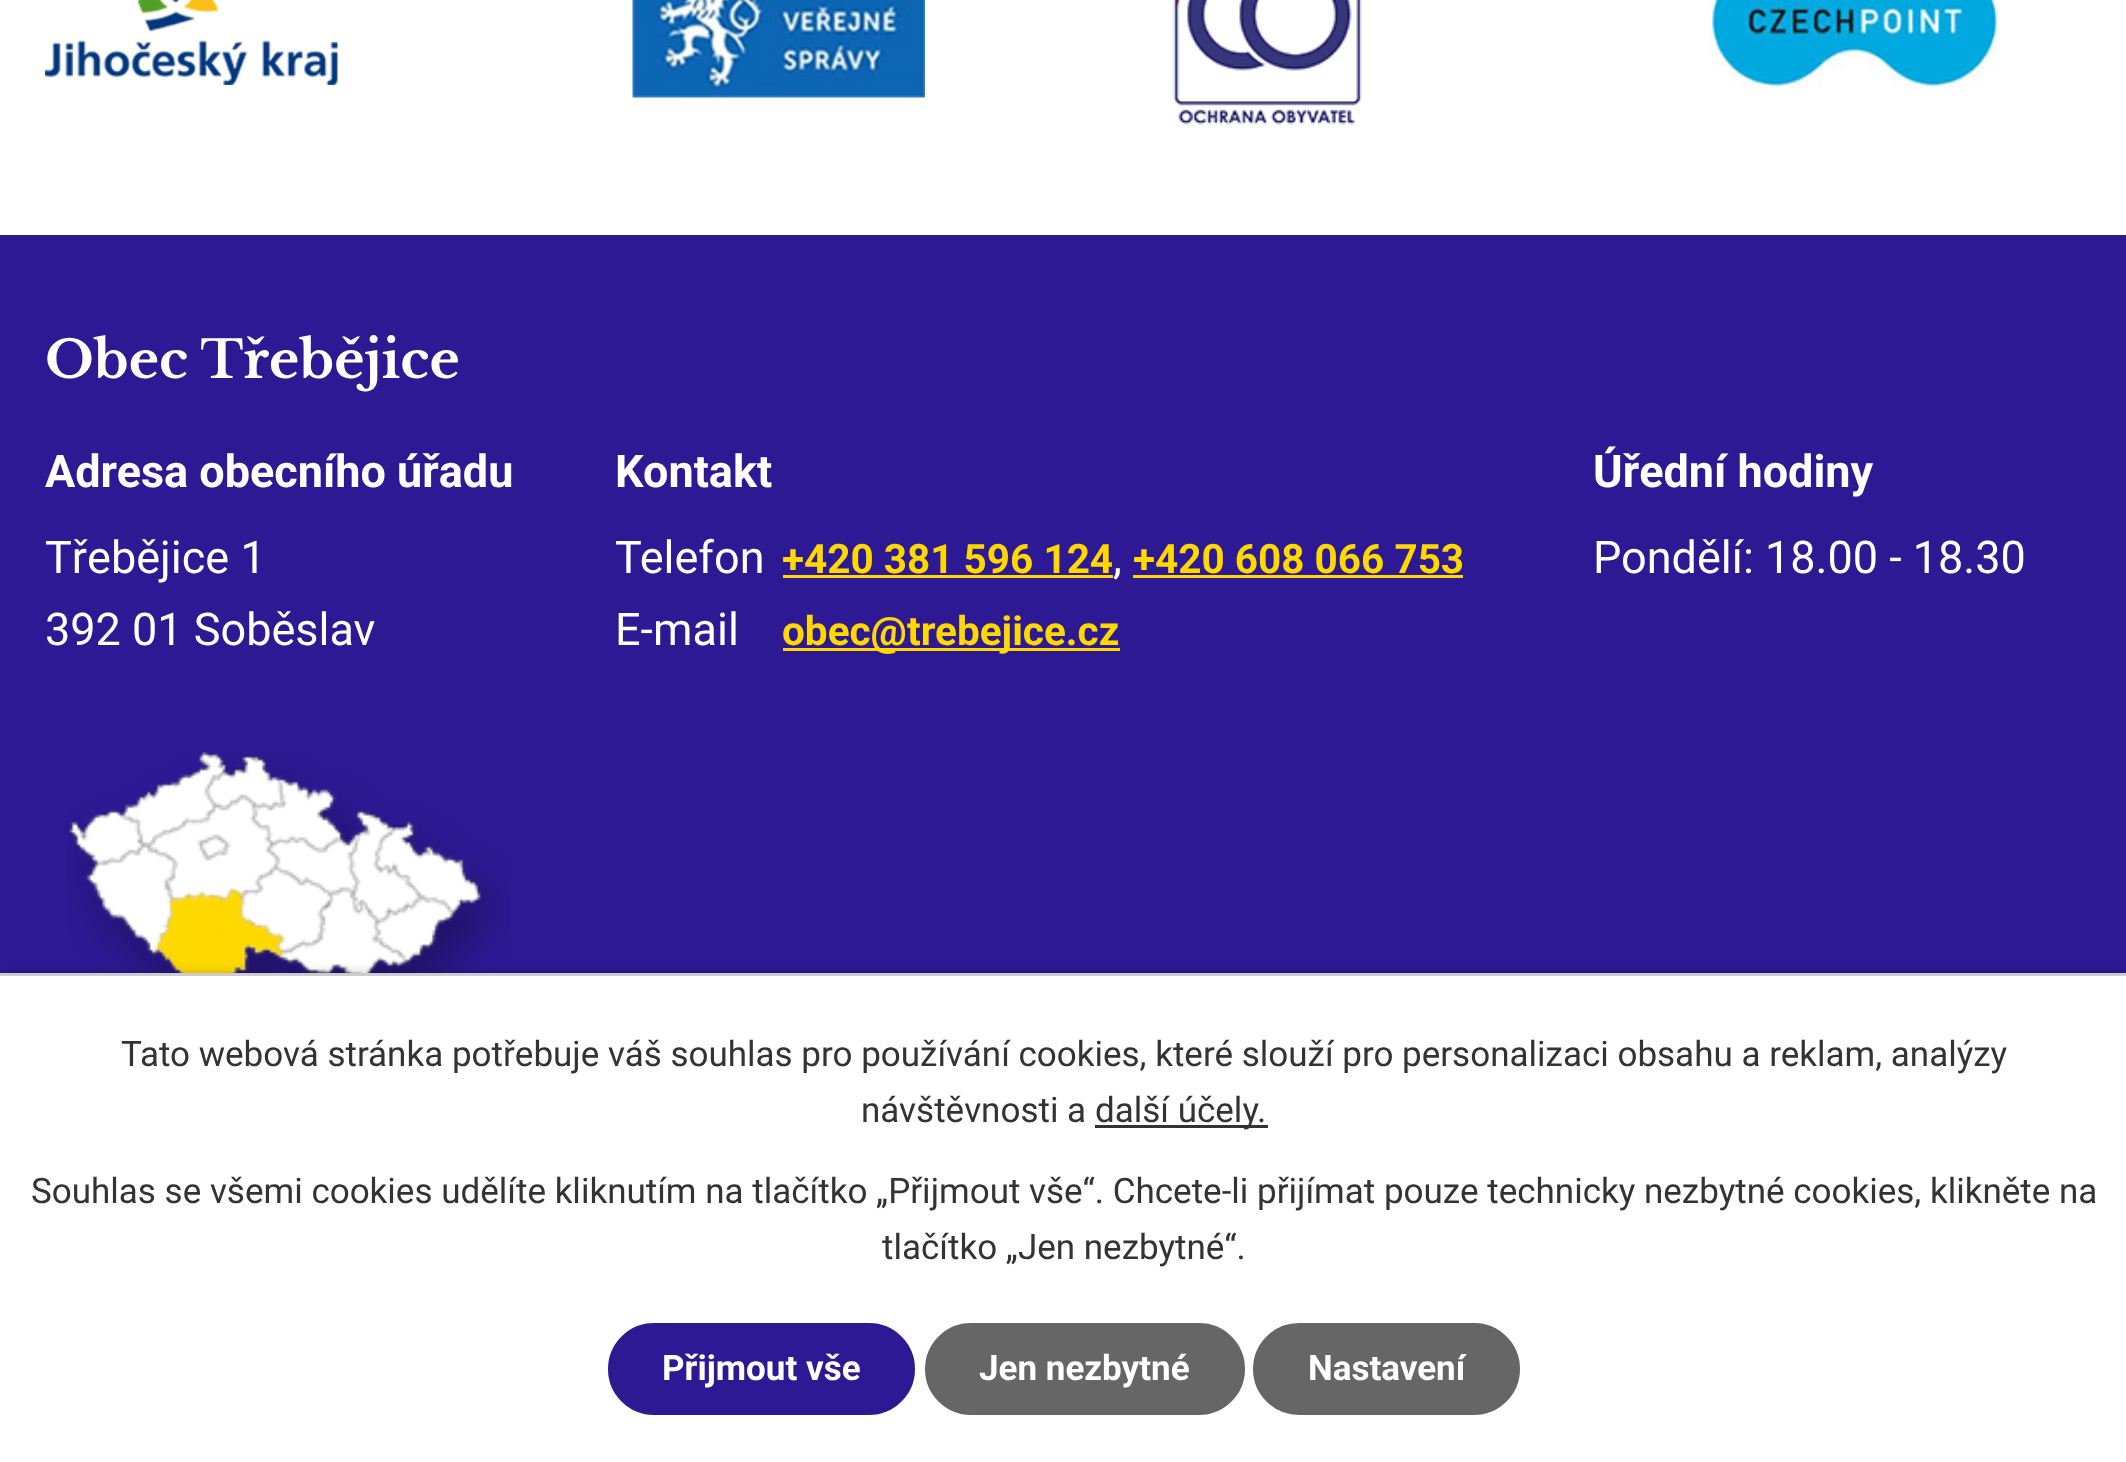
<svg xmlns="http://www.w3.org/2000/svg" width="2126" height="1462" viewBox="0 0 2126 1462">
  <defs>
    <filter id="blur1" x="-50%" y="-200%" width="200%" height="500%"><feGaussianBlur stdDeviation="6"/></filter>
  </defs>
  <rect width="100%" height="100%" fill="#ffffff"/>
  <image x="45" y="0" width="293" height="85" href="img1.png"/>
  <image x="632" y="0" width="293" height="98" href="img2.png"/>
  <image x="1173" y="0" width="189" height="125" href="img3.png"/>
  <image x="1709" y="0" width="289" height="89" href="img4.png"/>
  <rect x="0" y="235" width="2126" height="738" fill="#2d1993"/>
  <text x="45" y="378" font-family="Libre Baskerville" font-size="51.75" font-weight="bold" fill="#ffffff">Obec Třebějice</text>
  <text x="45" y="487" font-family="Roboto" font-size="45" font-weight="bold" fill="#ffffff">Adresa obecního úřadu</text>
  <text x="45" y="573" font-family="Roboto" font-size="45" fill="#ffffff">Třebějice 1</text>
  <text x="45" y="645" font-family="Roboto" font-size="45" fill="#ffffff">392 01 Soběslav</text>
  <text x="615" y="487" font-family="Roboto" font-size="45" font-weight="bold" fill="#ffffff">Kontakt</text>
  <text x="615" y="573" font-family="Roboto" font-size="45" fill="#ffffff">Telefon</text>
  <text x="782" y="573" font-family="Roboto" font-size="40.5" font-weight="bold" fill="#fed800">+420 381 596 124</text>
  <rect x="783" y="575" width="330" height="3" fill="#fed800"/>
  <text x="1113" y="573" font-family="Roboto" font-size="45" fill="#ffffff">,</text>
  <text x="1133" y="573" font-family="Roboto" font-size="40.5" font-weight="bold" fill="#fed800">+420 608 066 753</text>
  <rect x="1133" y="575" width="330" height="3" fill="#fed800"/>
  <text x="615" y="645" font-family="Roboto" font-size="45" fill="#ffffff">E-mail</text>
  <rect x="783" y="648" width="337" height="3" fill="#fed800"/>
  <text x="782" y="645" font-family="Roboto" font-size="40.5" font-weight="bold" fill="#fed800">obec@trebejice.cz</text>
  <text x="1593" y="487" font-family="Roboto" font-size="45" font-weight="bold" fill="#ffffff">Úřední hodiny</text>
  <text x="1593" y="573" font-family="Roboto" font-size="45" fill="#ffffff">Pondělí: 18.00 - 18.30</text>
  <image x="67" y="751" width="444" height="222" href="img5.png"/>
  <rect x="0" y="973" width="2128" height="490" fill="#000000" fill-opacity="0.2" filter="url(#blur1)"/>
  <rect x="0" y="976" width="2126" height="486" fill="#ffffff"/>
  <rect x="0" y="973" width="2126" height="3" fill="#cccccc"/>
  <text x="121" y="1066" font-family="Roboto" font-size="35" fill="#333333">Tato webová stránka potřebuje váš souhlas pro používání cookies, které slouží pro personalizaci obsahu a reklam, analýzy</text>
  <text x="861" y="1122" font-family="Roboto" font-size="35" fill="#333333">návštěvnosti a</text>
  <rect x="1095" y="1125" width="173" height="3" fill="#333333"/>
  <text x="1095" y="1122" font-family="Roboto" font-size="35" fill="#333333">další účely.</text>
  <text x="31" y="1203" font-family="Roboto" font-size="35" fill="#333333">Souhlas se všemi cookies udělíte kliknutím na tlačítko „Přijmout vše“. Chcete-li přijímat pouze technicky nezbytné cookies, klikněte na</text>
  <text x="882" y="1259" font-family="Roboto" font-size="35" fill="#333333">tlačítko „Jen nezbytné“.</text>
  <rect x="609.5" y="1324.5" width="304" height="89" rx="44.5" fill="#2d1993" stroke="#2d1993" stroke-width="3"/>
  <text x="662" y="1380" font-family="Roboto" font-size="35" font-weight="bold" fill="#ffffff">Přijmout vše</text>
  <rect x="926.5" y="1324.5" width="317" height="89" rx="44.5" fill="#666666" stroke="#666666" stroke-width="3"/>
  <text x="979" y="1380" font-family="Roboto" font-size="35" font-weight="bold" fill="#ffffff">Jen nezbytné</text>
  <rect x="1254.5" y="1324.5" width="264" height="89" rx="44.5" fill="#666666" stroke="#666666" stroke-width="3"/>
  <text x="1308" y="1380" font-family="Roboto" font-size="35" font-weight="bold" fill="#ffffff">Nastavení</text>
</svg>
